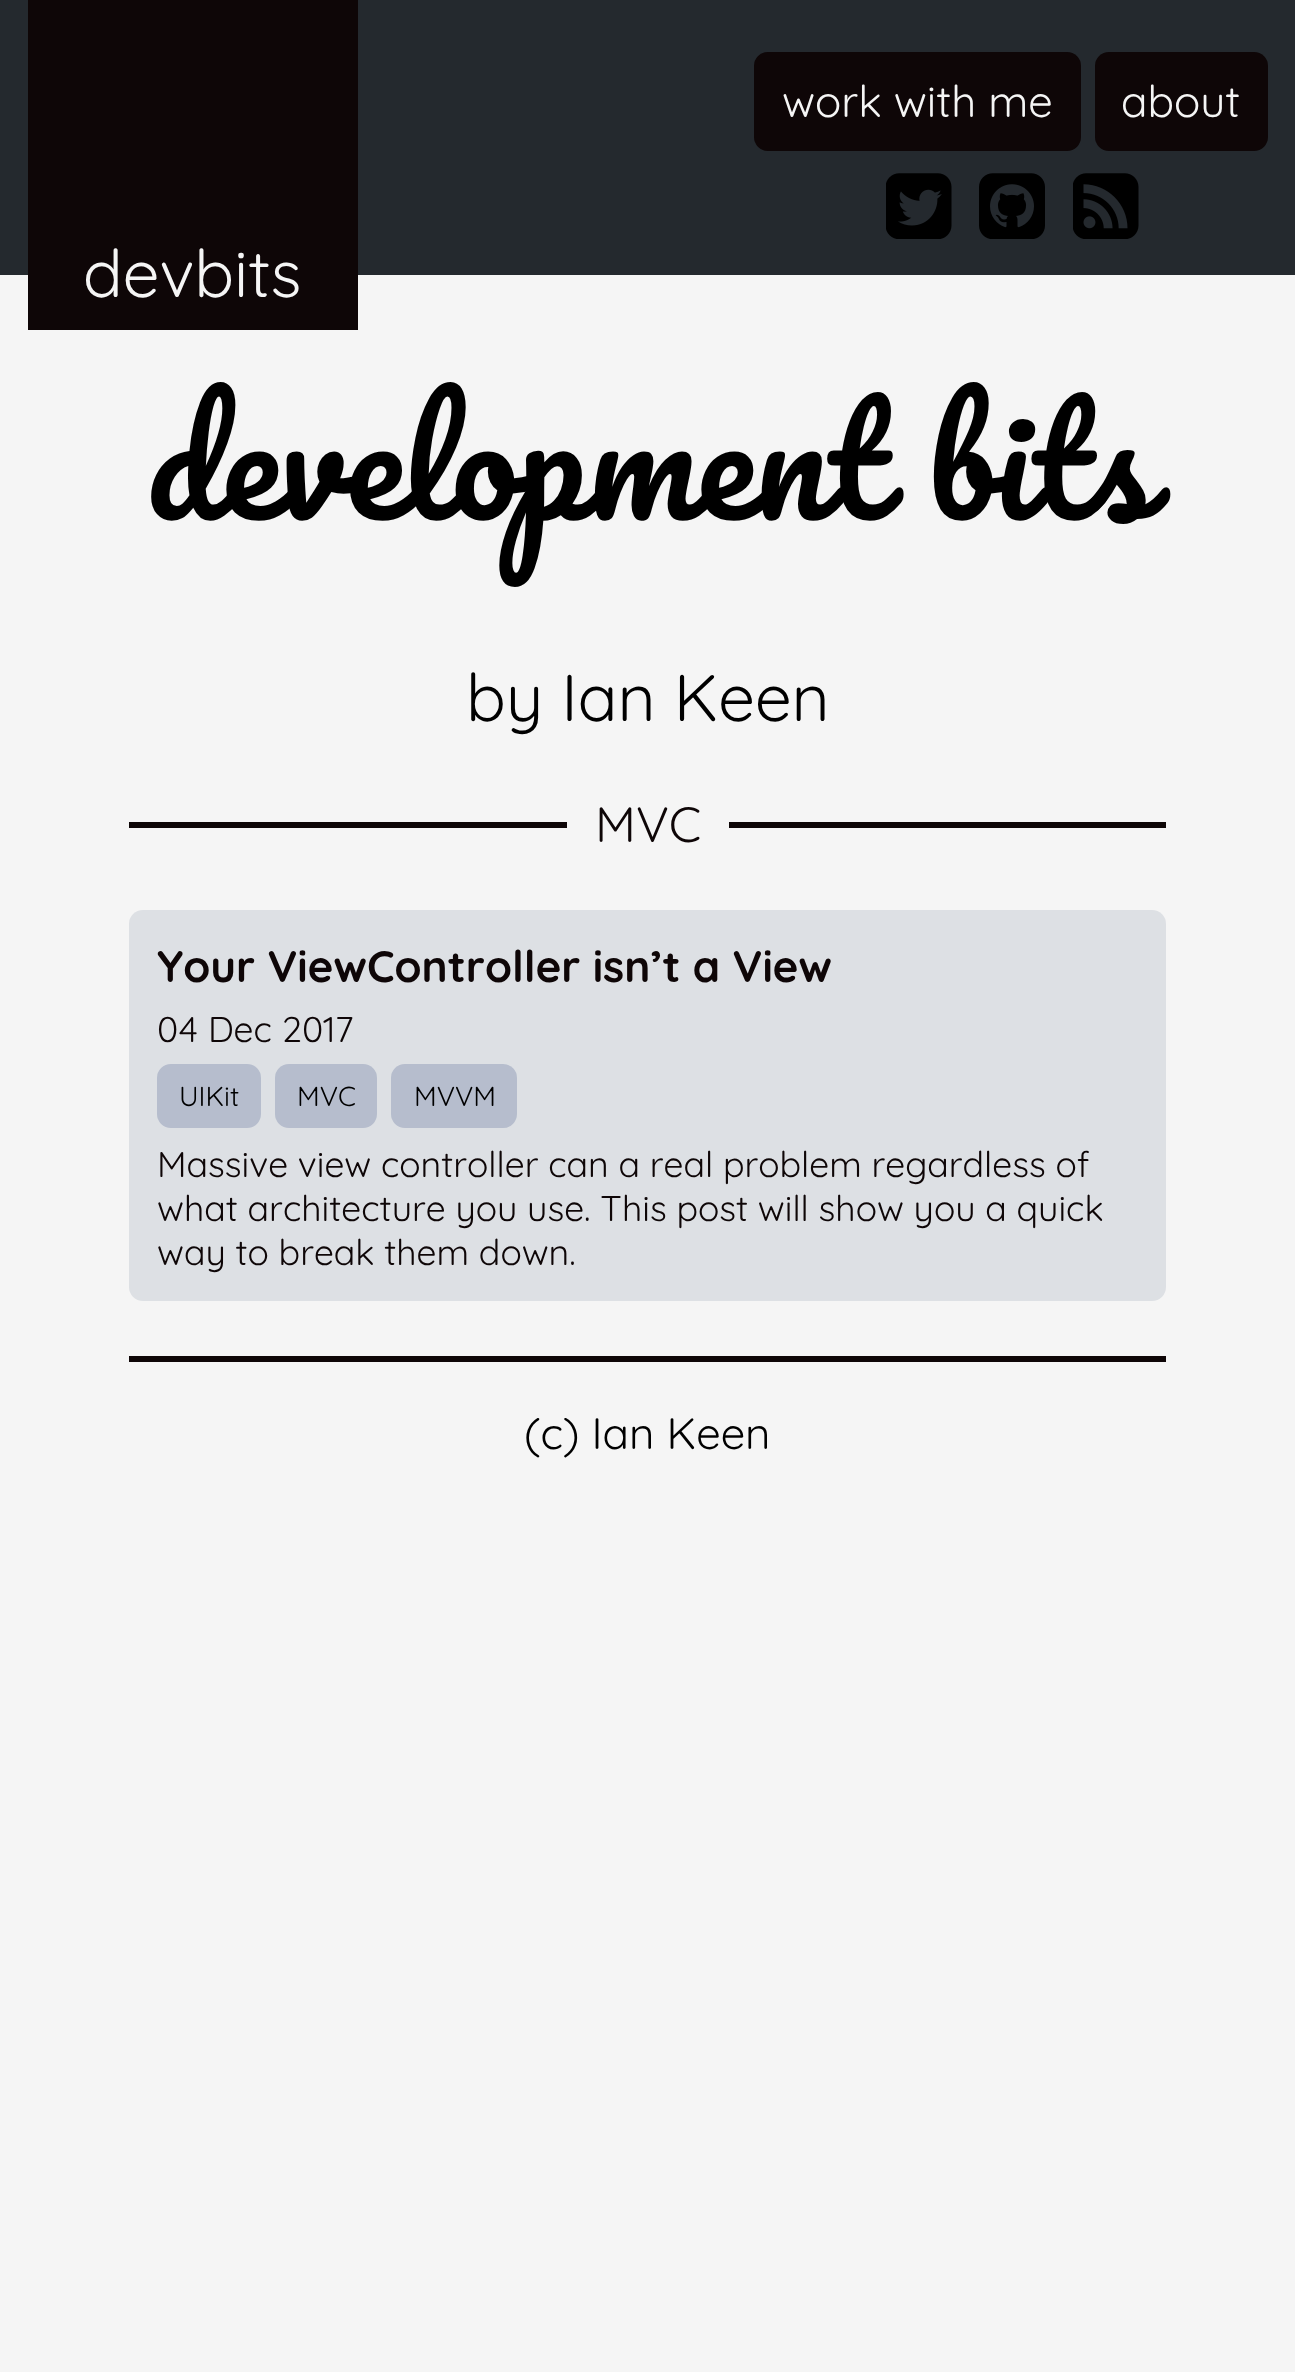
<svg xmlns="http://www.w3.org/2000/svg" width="1295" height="2372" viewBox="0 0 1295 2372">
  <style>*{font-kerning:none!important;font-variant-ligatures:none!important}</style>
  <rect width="100%" height="100%" fill="#f5f5f5"/>
  <rect x="0" y="0" width="1295" height="275" fill="#24292e"/>
  <rect x="754" y="52" width="327" height="99" rx="14" fill="#0e0607"/>
  <text x="782" y="117" font-family="Quicksand" font-size="44" fill="#f5f5f5">work with me</text>
  <rect x="1095" y="52" width="173" height="99" rx="14" fill="#0e0607"/>
  <text x="1121" y="117" font-family="Quicksand" font-size="44" fill="#f5f5f5">about</text>
  <image x="886" y="173" width="66" height="66" href="img1.png"/>
  <image x="979" y="173" width="66" height="66" href="img2.png"/>
  <image x="1073" y="173" width="66" height="66" href="img3.png"/>
  <rect x="28" y="0" width="330" height="330" fill="#0e0607"/>
  <text x="83" y="297" font-family="Quicksand" font-size="66" fill="#f5f5f5">devbits</text>
  <text x="146" y="520" word-spacing="2" font-family="Pacifico" font-size="146.75" fill="#000000">development bits</text>
  <text x="466" y="721" font-family="Quicksand" font-size="66" fill="#000000">by Ian Keen</text>
  <rect x="129" y="822" width="438" height="6" fill="#0e0607"/>
  <text x="595" y="842" font-family="Quicksand" font-size="49.5" fill="#0e0607">MVC</text>
  <rect x="729" y="822" width="437" height="6" fill="#0e0607"/>
  <rect x="129" y="910" width="1037" height="391" rx="14" fill="#dde0e4"/>
  <text x="157" y="982" font-family="Quicksand" font-size="44" font-weight="bold" fill="#0e0607">Your ViewController isn’t a View</text>
  <text x="157" y="1042" font-family="Quicksand" font-size="35.75" fill="#0e0607">04 Dec 2017</text>
  <rect x="157" y="1064" width="104" height="64" rx="14" fill="#b6bdcd"/>
  <text x="179" y="1106" font-family="Quicksand" font-size="27.5" fill="#000000">UIKit</text>
  <rect x="275" y="1064" width="102" height="64" rx="14" fill="#b6bdcd"/>
  <text x="297" y="1106" font-family="Quicksand" font-size="27.5" fill="#000000">MVC</text>
  <rect x="391" y="1064" width="126" height="64" rx="14" fill="#b6bdcd"/>
  <text x="414" y="1106" font-family="Quicksand" font-size="27.5" fill="#000000">MVVM</text>
  <text x="157" y="1177" font-family="Quicksand" font-size="35.75" fill="#0e0607">Massive view controller can a real problem regardless of</text>
  <text x="157" y="1221" font-family="Quicksand" font-size="35.75" fill="#0e0607">what architecture you use. This post will show you a quick</text>
  <text x="157" y="1265" font-family="Quicksand" font-size="35.75" fill="#0e0607">way to break them down.</text>
  <rect x="129" y="1356" width="1037" height="6" fill="#0e0607"/>
  <text x="524" y="1449" font-family="Quicksand" font-size="44" fill="#000000">(c) Ian Keen</text>
</svg>
